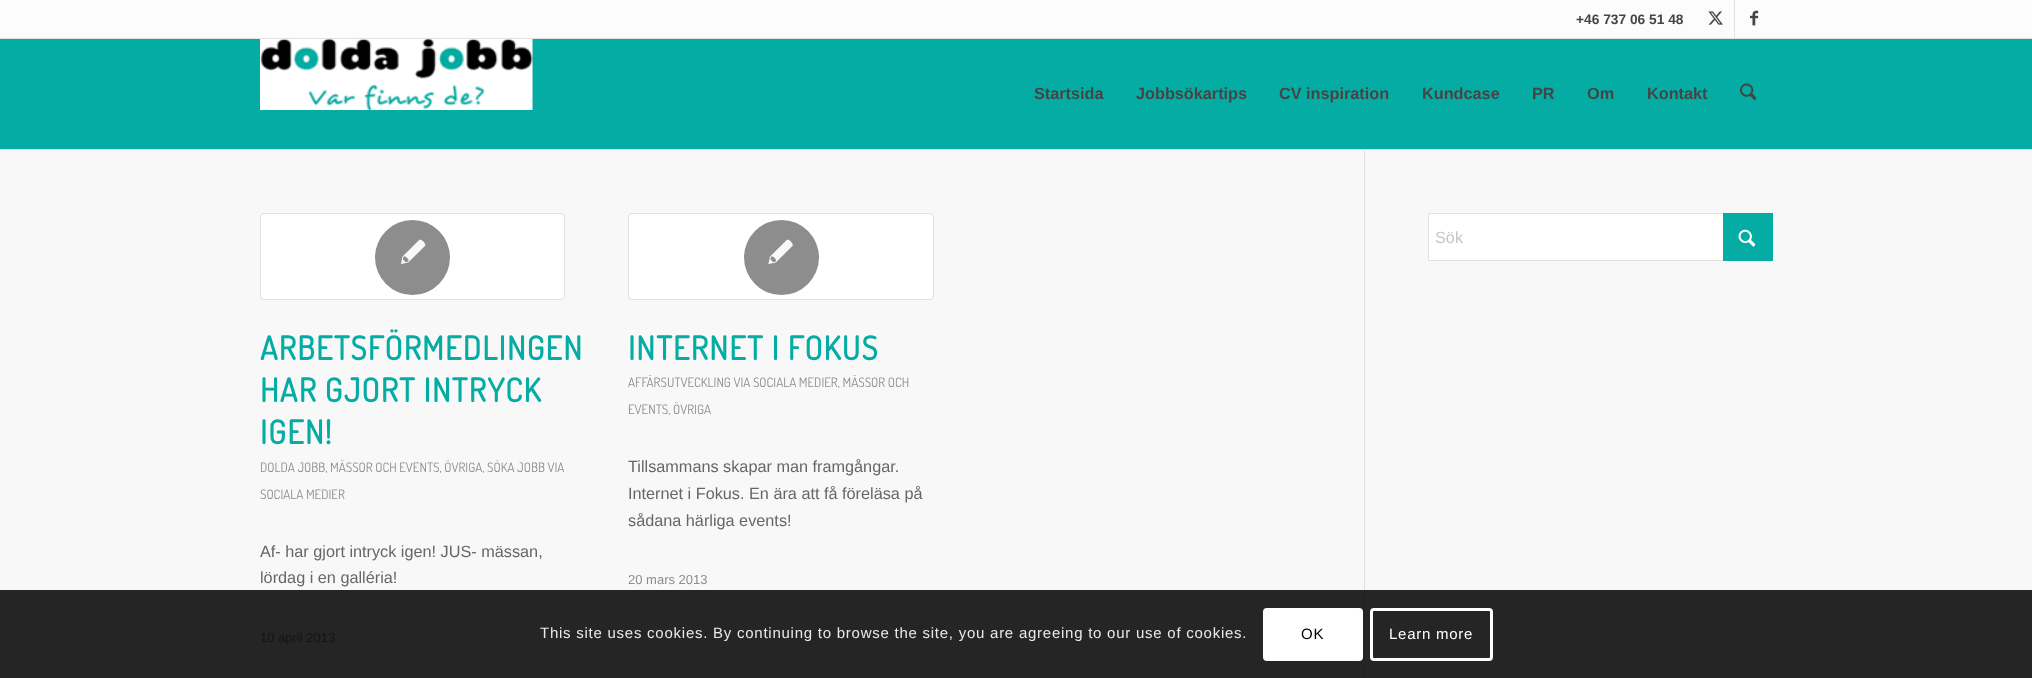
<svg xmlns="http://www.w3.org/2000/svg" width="2032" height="678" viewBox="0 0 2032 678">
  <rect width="100%" height="100%" fill="#04aca4"/>
  <rect x="0" y="0" width="2032" height="38" fill="#fcfcfc"/>
  <rect x="0" y="38" width="2032" height="1" fill="#e1e1e1"/>
  <text x="1576" y="24" font-family="Liberation Sans" font-size="13.75" font-weight="bold" fill="#454545">+46 737 06 51 48</text>
  <rect x="1734" y="0" width="1" height="38" fill="#e1e1e1"/>
  <image x="1708" y="11" width="15" height="14" href="img1.png"/>
  <image x="1750" y="10" width="9" height="16" href="img2.png"/>
  <rect x="0" y="149" width="2032" height="1" fill="#e1e1e1"/>
  <image x="260" y="39" width="273" height="71" href="img3.png"/>
  <text x="1034" y="99" font-family="Liberation Sans" font-size="16.25" font-weight="bold" fill="#454545">Startsida</text>
  <text x="1136" y="99" font-family="Liberation Sans" font-size="16.25" font-weight="bold" fill="#454545">Jobbsökartips</text>
  <text x="1279" y="99" font-family="Liberation Sans" font-size="16.25" font-weight="bold" fill="#454545">CV inspiration</text>
  <text x="1422" y="99" font-family="Liberation Sans" font-size="16.25" font-weight="bold" fill="#454545">Kundcase</text>
  <text x="1532" y="99" font-family="Liberation Sans" font-size="16.25" font-weight="bold" fill="#454545">PR</text>
  <text x="1587" y="99" font-family="Liberation Sans" font-size="16.25" font-weight="bold" fill="#454545">Om</text>
  <text x="1647" y="99" font-family="Liberation Sans" font-size="16.25" font-weight="bold" fill="#454545">Kontakt</text>
  <image x="1740" y="83" width="16" height="18" href="img4.png"/>
  <rect x="0" y="150" width="2032" height="440" fill="#f8f8f8"/>
  <rect x="0" y="590" width="2032" height="88" fill="#252525"/>
  <rect x="1429" y="214" width="294" height="46" fill="#ffffff"/>
  <rect x="1428.5" y="213.5" width="344" height="47" fill="none" stroke="#e1e1e1"/>
  <rect x="1723" y="213" width="50" height="48" fill="#04aca4"/>
  <text x="1435" y="243" font-family="Liberation Sans" font-size="16.25" fill="#c6c6c6">Sök</text>
  <image x="1738" y="229" width="18" height="18" href="img5.png"/>
  <rect x="1364" y="150" width="1" height="440" fill="#e1e1e1"/>
  <rect x="1364" y="590" width="1" height="88" fill="#222222"/>
  <rect x="260.5" y="213.5" width="304" height="86" rx="3.5" fill="#ffffff" stroke="#e1e1e1"/>
  <circle cx="412.5" cy="257.5" r="37.5" fill="#8d8d8d"/>
  <image x="401" y="239" width="25" height="25" href="img6.png"/>
  <text x="260" y="360" font-family="Dosis" font-size="32.5" font-weight="bold" letter-spacing="1.25" fill="#04aca4">ARBETSFÖRMEDLINGEN</text>
  <text x="260" y="402" font-family="Dosis" font-size="32.5" font-weight="bold" letter-spacing="1.25" fill="#04aca4">HAR GJORT INTRYCK</text>
  <text x="260" y="444" font-family="Dosis" font-size="32.5" font-weight="bold" letter-spacing="1.25" fill="#04aca4">IGEN!</text>
  <text x="260" y="472" font-family="Dosis" font-size="13" fill="#8d8d8d">DOLDA JOBB, MÄSSOR OCH EVENTS, ÖVRIGA, SÖKA JOBB VIA</text>
  <text x="260" y="499" font-family="Dosis" font-size="13" fill="#8d8d8d">SOCIALA MEDIER</text>
  <text x="260" y="557" font-family="Liberation Sans" font-size="16.25" fill="#666666">Af- har gjort intryck igen! JUS- mässan,</text>
  <text x="260" y="583" font-family="Liberation Sans" font-size="16.25" fill="#666666">lördag i en galléria!</text>
  <text x="260" y="642" font-family="Liberation Sans" font-size="13" fill="#151515">10 april 2013</text>
  <rect x="628.5" y="213.5" width="305" height="86" rx="3.5" fill="#ffffff" stroke="#e1e1e1"/>
  <circle cx="781.5" cy="257.5" r="37.5" fill="#8d8d8d"/>
  <image x="768" y="239" width="25" height="25" href="img7.png"/>
  <text x="628" y="360" font-family="Dosis" font-size="32.5" font-weight="bold" letter-spacing="1.25" fill="#04aca4">INTERNET I FOKUS</text>
  <text x="628" y="387" font-family="Dosis" font-size="13" fill="#8d8d8d">AFFÄRSUTVECKLING VIA SOCIALA MEDIER, MÄSSOR OCH</text>
  <text x="628" y="414" font-family="Dosis" font-size="13" fill="#8d8d8d">EVENTS, ÖVRIGA</text>
  <text x="628" y="472" font-family="Liberation Sans" font-size="16.25" fill="#666666">Tillsammans skapar man framgångar.</text>
  <text x="628" y="499" font-family="Liberation Sans" font-size="16.25" fill="#666666">Internet i Fokus. En ära att få föreläsa på</text>
  <text x="628" y="526" font-family="Liberation Sans" font-size="16.25" fill="#666666">sådana härliga events!</text>
  <text x="628" y="584" font-family="Liberation Sans" font-size="13" fill="#8d8d8d">20 mars 2013</text>
  <text x="540" y="638" font-family="Liberation Sans" font-size="15" letter-spacing="0.75" fill="#e9e9e9">This site uses cookies. By continuing to browse the site, you are agreeing to our use of cookies.</text>
  <rect x="1263" y="608" width="100" height="53" rx="4" fill="#ffffff"/>
  <text x="1301" y="639" font-family="Liberation Sans" font-size="15" letter-spacing="0.75" fill="#000000">OK</text>
  <rect x="1371.5" y="609.5" width="120" height="50" rx="2.5" fill="none" stroke="#ffffff" stroke-width="3"/>
  <text x="1389" y="639" font-family="Liberation Sans" font-size="15" letter-spacing="0.75" fill="#ffffff">Learn more</text>
</svg>
